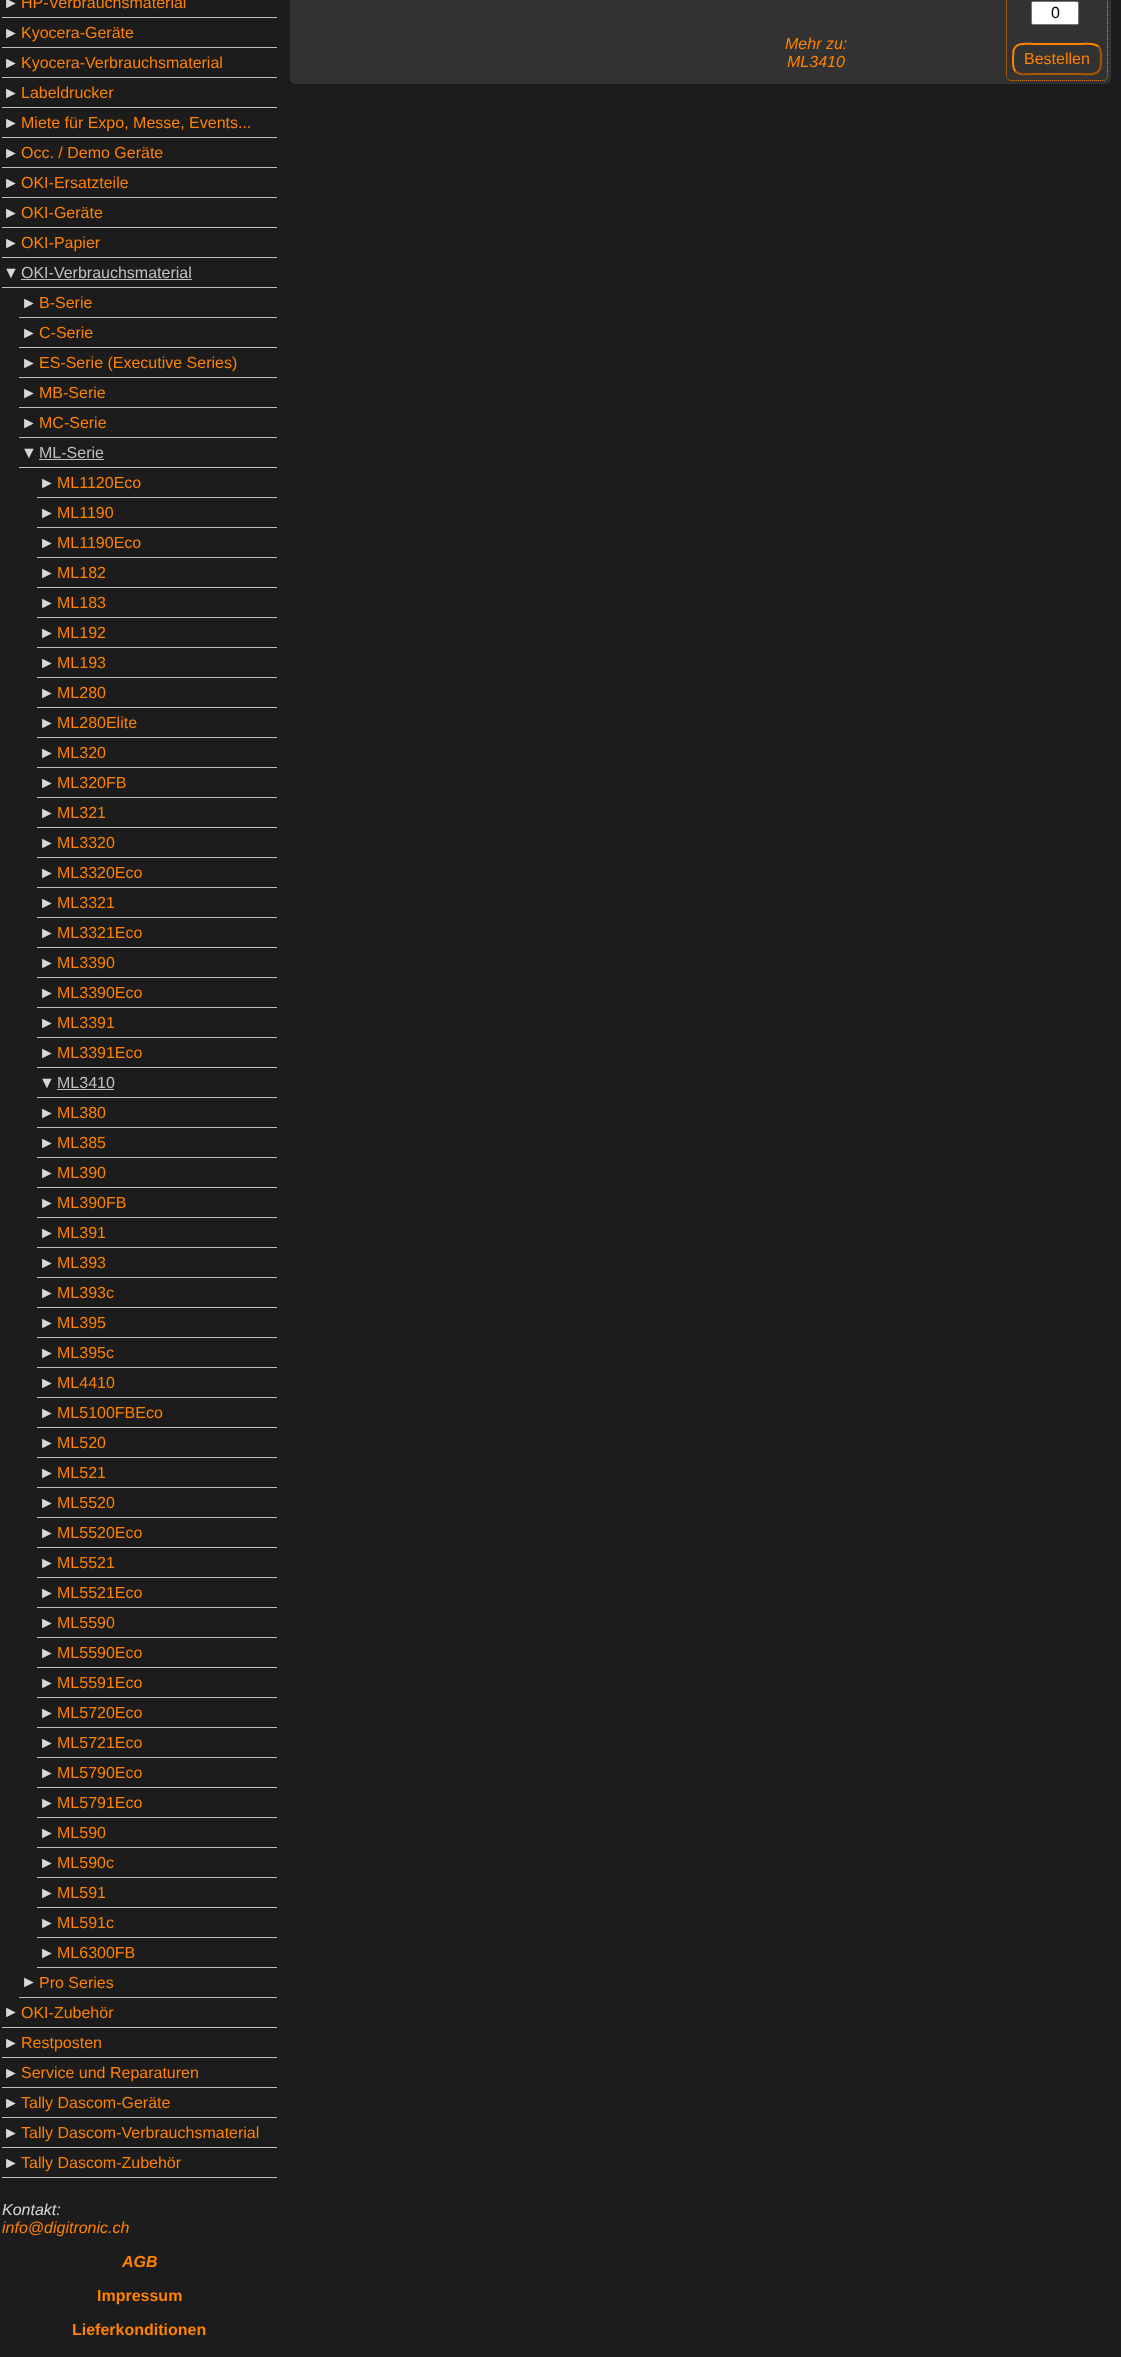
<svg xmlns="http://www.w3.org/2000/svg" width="1121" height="2357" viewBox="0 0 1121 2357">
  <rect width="100%" height="100%" fill="#1c1c1c"/>
  <text x="3" y="8" font-family="Liberation Sans" font-size="16" fill="#d8d8d8">►</text>
  <rect x="2" y="17" width="275" height="1" fill="#c0c0c0"/>
  <text x="21" y="8" font-family="Liberation Sans" font-size="16" fill="#ff8200">HP-Verbrauchsmaterial</text>
  <text x="3" y="38" font-family="Liberation Sans" font-size="16" fill="#d8d8d8">►</text>
  <rect x="2" y="47" width="275" height="1" fill="#c0c0c0"/>
  <text x="21" y="38" font-family="Liberation Sans" font-size="16" fill="#ff8200">Kyocera-Geräte</text>
  <text x="3" y="68" font-family="Liberation Sans" font-size="16" fill="#d8d8d8">►</text>
  <rect x="2" y="77" width="275" height="1" fill="#c0c0c0"/>
  <text x="21" y="68" font-family="Liberation Sans" font-size="16" fill="#ff8200">Kyocera-Verbrauchsmaterial</text>
  <text x="3" y="98" font-family="Liberation Sans" font-size="16" fill="#d8d8d8">►</text>
  <rect x="2" y="107" width="275" height="1" fill="#c0c0c0"/>
  <text x="21" y="98" font-family="Liberation Sans" font-size="16" fill="#ff8200">Labeldrucker</text>
  <text x="3" y="128" font-family="Liberation Sans" font-size="16" fill="#d8d8d8">►</text>
  <rect x="2" y="137" width="275" height="1" fill="#c0c0c0"/>
  <text x="21" y="128" font-family="Liberation Sans" font-size="16" fill="#ff8200">Miete für Expo, Messe, Events...</text>
  <text x="3" y="158" font-family="Liberation Sans" font-size="16" fill="#d8d8d8">►</text>
  <rect x="2" y="167" width="275" height="1" fill="#c0c0c0"/>
  <text x="21" y="158" font-family="Liberation Sans" font-size="16" fill="#ff8200">Occ. / Demo Geräte</text>
  <text x="3" y="188" font-family="Liberation Sans" font-size="16" fill="#d8d8d8">►</text>
  <rect x="2" y="197" width="275" height="1" fill="#c0c0c0"/>
  <text x="21" y="188" font-family="Liberation Sans" font-size="16" fill="#ff8200">OKI-Ersatzteile</text>
  <text x="3" y="218" font-family="Liberation Sans" font-size="16" fill="#d8d8d8">►</text>
  <rect x="2" y="227" width="275" height="1" fill="#c0c0c0"/>
  <text x="21" y="218" font-family="Liberation Sans" font-size="16" fill="#ff8200">OKI-Geräte</text>
  <text x="3" y="248" font-family="Liberation Sans" font-size="16" fill="#d8d8d8">►</text>
  <rect x="2" y="257" width="275" height="1" fill="#c0c0c0"/>
  <text x="21" y="248" font-family="Liberation Sans" font-size="16" fill="#ff8200">OKI-Papier</text>
  <text x="3" y="278" font-family="Liberation Sans" font-size="16" fill="#d8d8d8">▼</text>
  <rect x="2" y="287" width="275" height="1" fill="#c0c0c0"/>
  <text x="21" y="278" font-family="Liberation Sans" font-size="16" fill="#c0c0c0">OKI-Verbrauchsmaterial</text>
  <rect x="21" y="279" width="171" height="1" fill="#c0c0c0"/>
  <text x="21" y="308" font-family="Liberation Sans" font-size="16" fill="#d8d8d8">►</text>
  <rect x="19" y="317" width="258" height="1" fill="#c0c0c0"/>
  <text x="39" y="308" font-family="Liberation Sans" font-size="16" fill="#ff8200">B-Serie</text>
  <text x="21" y="338" font-family="Liberation Sans" font-size="16" fill="#d8d8d8">►</text>
  <rect x="19" y="347" width="258" height="1" fill="#c0c0c0"/>
  <text x="39" y="338" font-family="Liberation Sans" font-size="16" fill="#ff8200">C-Serie</text>
  <text x="21" y="368" font-family="Liberation Sans" font-size="16" fill="#d8d8d8">►</text>
  <rect x="19" y="377" width="258" height="1" fill="#c0c0c0"/>
  <text x="39" y="368" font-family="Liberation Sans" font-size="16" fill="#ff8200">ES-Serie (Executive Series)</text>
  <text x="21" y="398" font-family="Liberation Sans" font-size="16" fill="#d8d8d8">►</text>
  <rect x="19" y="407" width="258" height="1" fill="#c0c0c0"/>
  <text x="39" y="398" font-family="Liberation Sans" font-size="16" fill="#ff8200">MB-Serie</text>
  <text x="21" y="428" font-family="Liberation Sans" font-size="16" fill="#d8d8d8">►</text>
  <rect x="19" y="437" width="258" height="1" fill="#c0c0c0"/>
  <text x="39" y="428" font-family="Liberation Sans" font-size="16" fill="#ff8200">MC-Serie</text>
  <text x="21" y="458" font-family="Liberation Sans" font-size="16" fill="#d8d8d8">▼</text>
  <rect x="19" y="467" width="258" height="1" fill="#c0c0c0"/>
  <text x="39" y="458" font-family="Liberation Sans" font-size="16" fill="#c0c0c0">ML-Serie</text>
  <rect x="39" y="459" width="65" height="1" fill="#c0c0c0"/>
  <text x="39" y="488" font-family="Liberation Sans" font-size="16" fill="#d8d8d8">►</text>
  <rect x="37" y="497" width="240" height="1" fill="#c0c0c0"/>
  <text x="57" y="488" font-family="Liberation Sans" font-size="16" fill="#ff8200">ML1120Eco</text>
  <text x="39" y="518" font-family="Liberation Sans" font-size="16" fill="#d8d8d8">►</text>
  <rect x="37" y="527" width="240" height="1" fill="#c0c0c0"/>
  <text x="57" y="518" font-family="Liberation Sans" font-size="16" fill="#ff8200">ML1190</text>
  <text x="39" y="548" font-family="Liberation Sans" font-size="16" fill="#d8d8d8">►</text>
  <rect x="37" y="557" width="240" height="1" fill="#c0c0c0"/>
  <text x="57" y="548" font-family="Liberation Sans" font-size="16" fill="#ff8200">ML1190Eco</text>
  <text x="39" y="578" font-family="Liberation Sans" font-size="16" fill="#d8d8d8">►</text>
  <rect x="37" y="587" width="240" height="1" fill="#c0c0c0"/>
  <text x="57" y="578" font-family="Liberation Sans" font-size="16" fill="#ff8200">ML182</text>
  <text x="39" y="608" font-family="Liberation Sans" font-size="16" fill="#d8d8d8">►</text>
  <rect x="37" y="617" width="240" height="1" fill="#c0c0c0"/>
  <text x="57" y="608" font-family="Liberation Sans" font-size="16" fill="#ff8200">ML183</text>
  <text x="39" y="638" font-family="Liberation Sans" font-size="16" fill="#d8d8d8">►</text>
  <rect x="37" y="647" width="240" height="1" fill="#c0c0c0"/>
  <text x="57" y="638" font-family="Liberation Sans" font-size="16" fill="#ff8200">ML192</text>
  <text x="39" y="668" font-family="Liberation Sans" font-size="16" fill="#d8d8d8">►</text>
  <rect x="37" y="677" width="240" height="1" fill="#c0c0c0"/>
  <text x="57" y="668" font-family="Liberation Sans" font-size="16" fill="#ff8200">ML193</text>
  <text x="39" y="698" font-family="Liberation Sans" font-size="16" fill="#d8d8d8">►</text>
  <rect x="37" y="707" width="240" height="1" fill="#c0c0c0"/>
  <text x="57" y="698" font-family="Liberation Sans" font-size="16" fill="#ff8200">ML280</text>
  <text x="39" y="728" font-family="Liberation Sans" font-size="16" fill="#d8d8d8">►</text>
  <rect x="37" y="737" width="240" height="1" fill="#c0c0c0"/>
  <text x="57" y="728" font-family="Liberation Sans" font-size="16" fill="#ff8200">ML280Elite</text>
  <text x="39" y="758" font-family="Liberation Sans" font-size="16" fill="#d8d8d8">►</text>
  <rect x="37" y="767" width="240" height="1" fill="#c0c0c0"/>
  <text x="57" y="758" font-family="Liberation Sans" font-size="16" fill="#ff8200">ML320</text>
  <text x="39" y="788" font-family="Liberation Sans" font-size="16" fill="#d8d8d8">►</text>
  <rect x="37" y="797" width="240" height="1" fill="#c0c0c0"/>
  <text x="57" y="788" font-family="Liberation Sans" font-size="16" fill="#ff8200">ML320FB</text>
  <text x="39" y="818" font-family="Liberation Sans" font-size="16" fill="#d8d8d8">►</text>
  <rect x="37" y="827" width="240" height="1" fill="#c0c0c0"/>
  <text x="57" y="818" font-family="Liberation Sans" font-size="16" fill="#ff8200">ML321</text>
  <text x="39" y="848" font-family="Liberation Sans" font-size="16" fill="#d8d8d8">►</text>
  <rect x="37" y="857" width="240" height="1" fill="#c0c0c0"/>
  <text x="57" y="848" font-family="Liberation Sans" font-size="16" fill="#ff8200">ML3320</text>
  <text x="39" y="878" font-family="Liberation Sans" font-size="16" fill="#d8d8d8">►</text>
  <rect x="37" y="887" width="240" height="1" fill="#c0c0c0"/>
  <text x="57" y="878" font-family="Liberation Sans" font-size="16" fill="#ff8200">ML3320Eco</text>
  <text x="39" y="908" font-family="Liberation Sans" font-size="16" fill="#d8d8d8">►</text>
  <rect x="37" y="917" width="240" height="1" fill="#c0c0c0"/>
  <text x="57" y="908" font-family="Liberation Sans" font-size="16" fill="#ff8200">ML3321</text>
  <text x="39" y="938" font-family="Liberation Sans" font-size="16" fill="#d8d8d8">►</text>
  <rect x="37" y="947" width="240" height="1" fill="#c0c0c0"/>
  <text x="57" y="938" font-family="Liberation Sans" font-size="16" fill="#ff8200">ML3321Eco</text>
  <text x="39" y="968" font-family="Liberation Sans" font-size="16" fill="#d8d8d8">►</text>
  <rect x="37" y="977" width="240" height="1" fill="#c0c0c0"/>
  <text x="57" y="968" font-family="Liberation Sans" font-size="16" fill="#ff8200">ML3390</text>
  <text x="39" y="998" font-family="Liberation Sans" font-size="16" fill="#d8d8d8">►</text>
  <rect x="37" y="1007" width="240" height="1" fill="#c0c0c0"/>
  <text x="57" y="998" font-family="Liberation Sans" font-size="16" fill="#ff8200">ML3390Eco</text>
  <text x="39" y="1028" font-family="Liberation Sans" font-size="16" fill="#d8d8d8">►</text>
  <rect x="37" y="1037" width="240" height="1" fill="#c0c0c0"/>
  <text x="57" y="1028" font-family="Liberation Sans" font-size="16" fill="#ff8200">ML3391</text>
  <text x="39" y="1058" font-family="Liberation Sans" font-size="16" fill="#d8d8d8">►</text>
  <rect x="37" y="1067" width="240" height="1" fill="#c0c0c0"/>
  <text x="57" y="1058" font-family="Liberation Sans" font-size="16" fill="#ff8200">ML3391Eco</text>
  <text x="39" y="1088" font-family="Liberation Sans" font-size="16" fill="#d8d8d8">▼</text>
  <rect x="37" y="1097" width="240" height="1" fill="#c0c0c0"/>
  <text x="57" y="1088" font-family="Liberation Sans" font-size="16" fill="#c0c0c0">ML3410</text>
  <rect x="57" y="1089" width="57" height="1" fill="#c0c0c0"/>
  <text x="39" y="1118" font-family="Liberation Sans" font-size="16" fill="#d8d8d8">►</text>
  <rect x="37" y="1127" width="240" height="1" fill="#c0c0c0"/>
  <text x="57" y="1118" font-family="Liberation Sans" font-size="16" fill="#ff8200">ML380</text>
  <text x="39" y="1148" font-family="Liberation Sans" font-size="16" fill="#d8d8d8">►</text>
  <rect x="37" y="1157" width="240" height="1" fill="#c0c0c0"/>
  <text x="57" y="1148" font-family="Liberation Sans" font-size="16" fill="#ff8200">ML385</text>
  <text x="39" y="1178" font-family="Liberation Sans" font-size="16" fill="#d8d8d8">►</text>
  <rect x="37" y="1187" width="240" height="1" fill="#c0c0c0"/>
  <text x="57" y="1178" font-family="Liberation Sans" font-size="16" fill="#ff8200">ML390</text>
  <text x="39" y="1208" font-family="Liberation Sans" font-size="16" fill="#d8d8d8">►</text>
  <rect x="37" y="1217" width="240" height="1" fill="#c0c0c0"/>
  <text x="57" y="1208" font-family="Liberation Sans" font-size="16" fill="#ff8200">ML390FB</text>
  <text x="39" y="1238" font-family="Liberation Sans" font-size="16" fill="#d8d8d8">►</text>
  <rect x="37" y="1247" width="240" height="1" fill="#c0c0c0"/>
  <text x="57" y="1238" font-family="Liberation Sans" font-size="16" fill="#ff8200">ML391</text>
  <text x="39" y="1268" font-family="Liberation Sans" font-size="16" fill="#d8d8d8">►</text>
  <rect x="37" y="1277" width="240" height="1" fill="#c0c0c0"/>
  <text x="57" y="1268" font-family="Liberation Sans" font-size="16" fill="#ff8200">ML393</text>
  <text x="39" y="1298" font-family="Liberation Sans" font-size="16" fill="#d8d8d8">►</text>
  <rect x="37" y="1307" width="240" height="1" fill="#c0c0c0"/>
  <text x="57" y="1298" font-family="Liberation Sans" font-size="16" fill="#ff8200">ML393c</text>
  <text x="39" y="1328" font-family="Liberation Sans" font-size="16" fill="#d8d8d8">►</text>
  <rect x="37" y="1337" width="240" height="1" fill="#c0c0c0"/>
  <text x="57" y="1328" font-family="Liberation Sans" font-size="16" fill="#ff8200">ML395</text>
  <text x="39" y="1358" font-family="Liberation Sans" font-size="16" fill="#d8d8d8">►</text>
  <rect x="37" y="1367" width="240" height="1" fill="#c0c0c0"/>
  <text x="57" y="1358" font-family="Liberation Sans" font-size="16" fill="#ff8200">ML395c</text>
  <text x="39" y="1388" font-family="Liberation Sans" font-size="16" fill="#d8d8d8">►</text>
  <rect x="37" y="1397" width="240" height="1" fill="#c0c0c0"/>
  <text x="57" y="1388" font-family="Liberation Sans" font-size="16" fill="#ff8200">ML4410</text>
  <text x="39" y="1418" font-family="Liberation Sans" font-size="16" fill="#d8d8d8">►</text>
  <rect x="37" y="1427" width="240" height="1" fill="#c0c0c0"/>
  <text x="57" y="1418" font-family="Liberation Sans" font-size="16" fill="#ff8200">ML5100FBEco</text>
  <text x="39" y="1448" font-family="Liberation Sans" font-size="16" fill="#d8d8d8">►</text>
  <rect x="37" y="1457" width="240" height="1" fill="#c0c0c0"/>
  <text x="57" y="1448" font-family="Liberation Sans" font-size="16" fill="#ff8200">ML520</text>
  <text x="39" y="1478" font-family="Liberation Sans" font-size="16" fill="#d8d8d8">►</text>
  <rect x="37" y="1487" width="240" height="1" fill="#c0c0c0"/>
  <text x="57" y="1478" font-family="Liberation Sans" font-size="16" fill="#ff8200">ML521</text>
  <text x="39" y="1508" font-family="Liberation Sans" font-size="16" fill="#d8d8d8">►</text>
  <rect x="37" y="1517" width="240" height="1" fill="#c0c0c0"/>
  <text x="57" y="1508" font-family="Liberation Sans" font-size="16" fill="#ff8200">ML5520</text>
  <text x="39" y="1538" font-family="Liberation Sans" font-size="16" fill="#d8d8d8">►</text>
  <rect x="37" y="1547" width="240" height="1" fill="#c0c0c0"/>
  <text x="57" y="1538" font-family="Liberation Sans" font-size="16" fill="#ff8200">ML5520Eco</text>
  <text x="39" y="1568" font-family="Liberation Sans" font-size="16" fill="#d8d8d8">►</text>
  <rect x="37" y="1577" width="240" height="1" fill="#c0c0c0"/>
  <text x="57" y="1568" font-family="Liberation Sans" font-size="16" fill="#ff8200">ML5521</text>
  <text x="39" y="1598" font-family="Liberation Sans" font-size="16" fill="#d8d8d8">►</text>
  <rect x="37" y="1607" width="240" height="1" fill="#c0c0c0"/>
  <text x="57" y="1598" font-family="Liberation Sans" font-size="16" fill="#ff8200">ML5521Eco</text>
  <text x="39" y="1628" font-family="Liberation Sans" font-size="16" fill="#d8d8d8">►</text>
  <rect x="37" y="1637" width="240" height="1" fill="#c0c0c0"/>
  <text x="57" y="1628" font-family="Liberation Sans" font-size="16" fill="#ff8200">ML5590</text>
  <text x="39" y="1658" font-family="Liberation Sans" font-size="16" fill="#d8d8d8">►</text>
  <rect x="37" y="1667" width="240" height="1" fill="#c0c0c0"/>
  <text x="57" y="1658" font-family="Liberation Sans" font-size="16" fill="#ff8200">ML5590Eco</text>
  <text x="39" y="1688" font-family="Liberation Sans" font-size="16" fill="#d8d8d8">►</text>
  <rect x="37" y="1697" width="240" height="1" fill="#c0c0c0"/>
  <text x="57" y="1688" font-family="Liberation Sans" font-size="16" fill="#ff8200">ML5591Eco</text>
  <text x="39" y="1718" font-family="Liberation Sans" font-size="16" fill="#d8d8d8">►</text>
  <rect x="37" y="1727" width="240" height="1" fill="#c0c0c0"/>
  <text x="57" y="1718" font-family="Liberation Sans" font-size="16" fill="#ff8200">ML5720Eco</text>
  <text x="39" y="1748" font-family="Liberation Sans" font-size="16" fill="#d8d8d8">►</text>
  <rect x="37" y="1757" width="240" height="1" fill="#c0c0c0"/>
  <text x="57" y="1748" font-family="Liberation Sans" font-size="16" fill="#ff8200">ML5721Eco</text>
  <text x="39" y="1778" font-family="Liberation Sans" font-size="16" fill="#d8d8d8">►</text>
  <rect x="37" y="1787" width="240" height="1" fill="#c0c0c0"/>
  <text x="57" y="1778" font-family="Liberation Sans" font-size="16" fill="#ff8200">ML5790Eco</text>
  <text x="39" y="1808" font-family="Liberation Sans" font-size="16" fill="#d8d8d8">►</text>
  <rect x="37" y="1817" width="240" height="1" fill="#c0c0c0"/>
  <text x="57" y="1808" font-family="Liberation Sans" font-size="16" fill="#ff8200">ML5791Eco</text>
  <text x="39" y="1838" font-family="Liberation Sans" font-size="16" fill="#d8d8d8">►</text>
  <rect x="37" y="1847" width="240" height="1" fill="#c0c0c0"/>
  <text x="57" y="1838" font-family="Liberation Sans" font-size="16" fill="#ff8200">ML590</text>
  <text x="39" y="1868" font-family="Liberation Sans" font-size="16" fill="#d8d8d8">►</text>
  <rect x="37" y="1877" width="240" height="1" fill="#c0c0c0"/>
  <text x="57" y="1868" font-family="Liberation Sans" font-size="16" fill="#ff8200">ML590c</text>
  <text x="39" y="1898" font-family="Liberation Sans" font-size="16" fill="#d8d8d8">►</text>
  <rect x="37" y="1907" width="240" height="1" fill="#c0c0c0"/>
  <text x="57" y="1898" font-family="Liberation Sans" font-size="16" fill="#ff8200">ML591</text>
  <text x="39" y="1928" font-family="Liberation Sans" font-size="16" fill="#d8d8d8">►</text>
  <rect x="37" y="1937" width="240" height="1" fill="#c0c0c0"/>
  <text x="57" y="1928" font-family="Liberation Sans" font-size="16" fill="#ff8200">ML591c</text>
  <text x="39" y="1958" font-family="Liberation Sans" font-size="16" fill="#d8d8d8">►</text>
  <rect x="37" y="1967" width="240" height="1" fill="#c0c0c0"/>
  <text x="57" y="1958" font-family="Liberation Sans" font-size="16" fill="#ff8200">ML6300FB</text>
  <text x="21" y="1987" font-family="Liberation Sans" font-size="16" fill="#d8d8d8">►</text>
  <rect x="19" y="1997" width="258" height="1" fill="#c0c0c0"/>
  <text x="39" y="1988" font-family="Liberation Sans" font-size="16" fill="#ff8200">Pro Series</text>
  <text x="3" y="2017" font-family="Liberation Sans" font-size="16" fill="#d8d8d8">►</text>
  <rect x="2" y="2027" width="275" height="1" fill="#c0c0c0"/>
  <text x="21" y="2018" font-family="Liberation Sans" font-size="16" fill="#ff8200">OKI-Zubehör</text>
  <text x="3" y="2048" font-family="Liberation Sans" font-size="16" fill="#d8d8d8">►</text>
  <rect x="2" y="2057" width="275" height="1" fill="#c0c0c0"/>
  <text x="21" y="2048" font-family="Liberation Sans" font-size="16" fill="#ff8200">Restposten</text>
  <text x="3" y="2078" font-family="Liberation Sans" font-size="16" fill="#d8d8d8">►</text>
  <rect x="2" y="2087" width="275" height="1" fill="#c0c0c0"/>
  <text x="21" y="2078" font-family="Liberation Sans" font-size="16" fill="#ff8200">Service und Reparaturen</text>
  <text x="3" y="2108" font-family="Liberation Sans" font-size="16" fill="#d8d8d8">►</text>
  <rect x="2" y="2117" width="275" height="1" fill="#c0c0c0"/>
  <text x="21" y="2108" font-family="Liberation Sans" font-size="16" fill="#ff8200">Tally Dascom-Geräte</text>
  <text x="3" y="2138" font-family="Liberation Sans" font-size="16" fill="#d8d8d8">►</text>
  <rect x="2" y="2147" width="275" height="1" fill="#c0c0c0"/>
  <text x="21" y="2138" font-family="Liberation Sans" font-size="16" fill="#ff8200">Tally Dascom-Verbrauchsmaterial</text>
  <text x="3" y="2168" font-family="Liberation Sans" font-size="16" fill="#d8d8d8">►</text>
  <rect x="2" y="2177" width="275" height="1" fill="#c0c0c0"/>
  <text x="21" y="2168" font-family="Liberation Sans" font-size="16" fill="#ff8200">Tally Dascom-Zubehör</text>
  <text x="2" y="2215" font-family="Liberation Sans" font-size="16" font-style="italic" fill="#d8d8d8">Kontakt:</text>
  <text x="2" y="2233" font-family="Liberation Sans" font-size="16" font-style="italic" fill="#ff8200">info@digitronic.ch</text>
  <text x="122" y="2267" font-family="Liberation Sans" font-size="16" font-weight="bold" font-style="italic" fill="#ff8200">AGB</text>
  <text x="97" y="2301" font-family="Liberation Sans" font-size="16" font-weight="bold" fill="#ff8200">Impressum</text>
  <text x="72" y="2335" font-family="Liberation Sans" font-size="16" font-weight="bold" fill="#ff8200">Lieferkonditionen</text>
  <rect x="290" y="-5" width="821" height="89" rx="5" fill="#323232"/>
  <text x="785" y="49" font-family="Liberation Sans" font-size="16" font-style="italic" fill="#ff8200">Mehr zu:</text>
  <text x="787" y="67" font-family="Liberation Sans" font-size="16" font-style="italic" fill="#ff8200">ML3410</text>
  <path d="M1011-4.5H1103C1105.5-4.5 1107.5-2.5 1107.5 0V76C1107.5 78.5 1105.5 80.5 1103 80.5H1011C1008.5 80.5 1006.5 78.5 1006.5 76V0C1006.5-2.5 1008.5-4.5 1011-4.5Z" fill="none" stroke="#ff8200" stroke-dasharray="1 1"/>
  <rect x="1031.5" y="1.5" width="47" height="23" rx="1.5" fill="#ffffff" stroke="#767676"/>
  <text x="1051" y="18" font-family="Liberation Sans" font-size="16" fill="#000000">0</text>
  <path d="M1098.5 46.5C1101.5 50 1101 54.5 1101 59L1100.5 67.5C1098 76.5 1087 74 1080.5 74H1033.5C1028.5 74 1020 76 1015.5 71.5" fill="none" stroke="#aa5700" stroke-width="2"/>
  <path d="M1015.5 71.5C1012.5 68 1013 63.5 1013 59L1013.5 50.5C1016 41.5 1027 44 1033.5 44H1080.5C1085.5 44 1094 42 1098.5 46.5" fill="none" stroke="#ff8200" stroke-width="2"/>
  <text x="1024" y="64" font-family="Liberation Sans" font-size="16" fill="#ff8200">Bestellen</text>
</svg>
